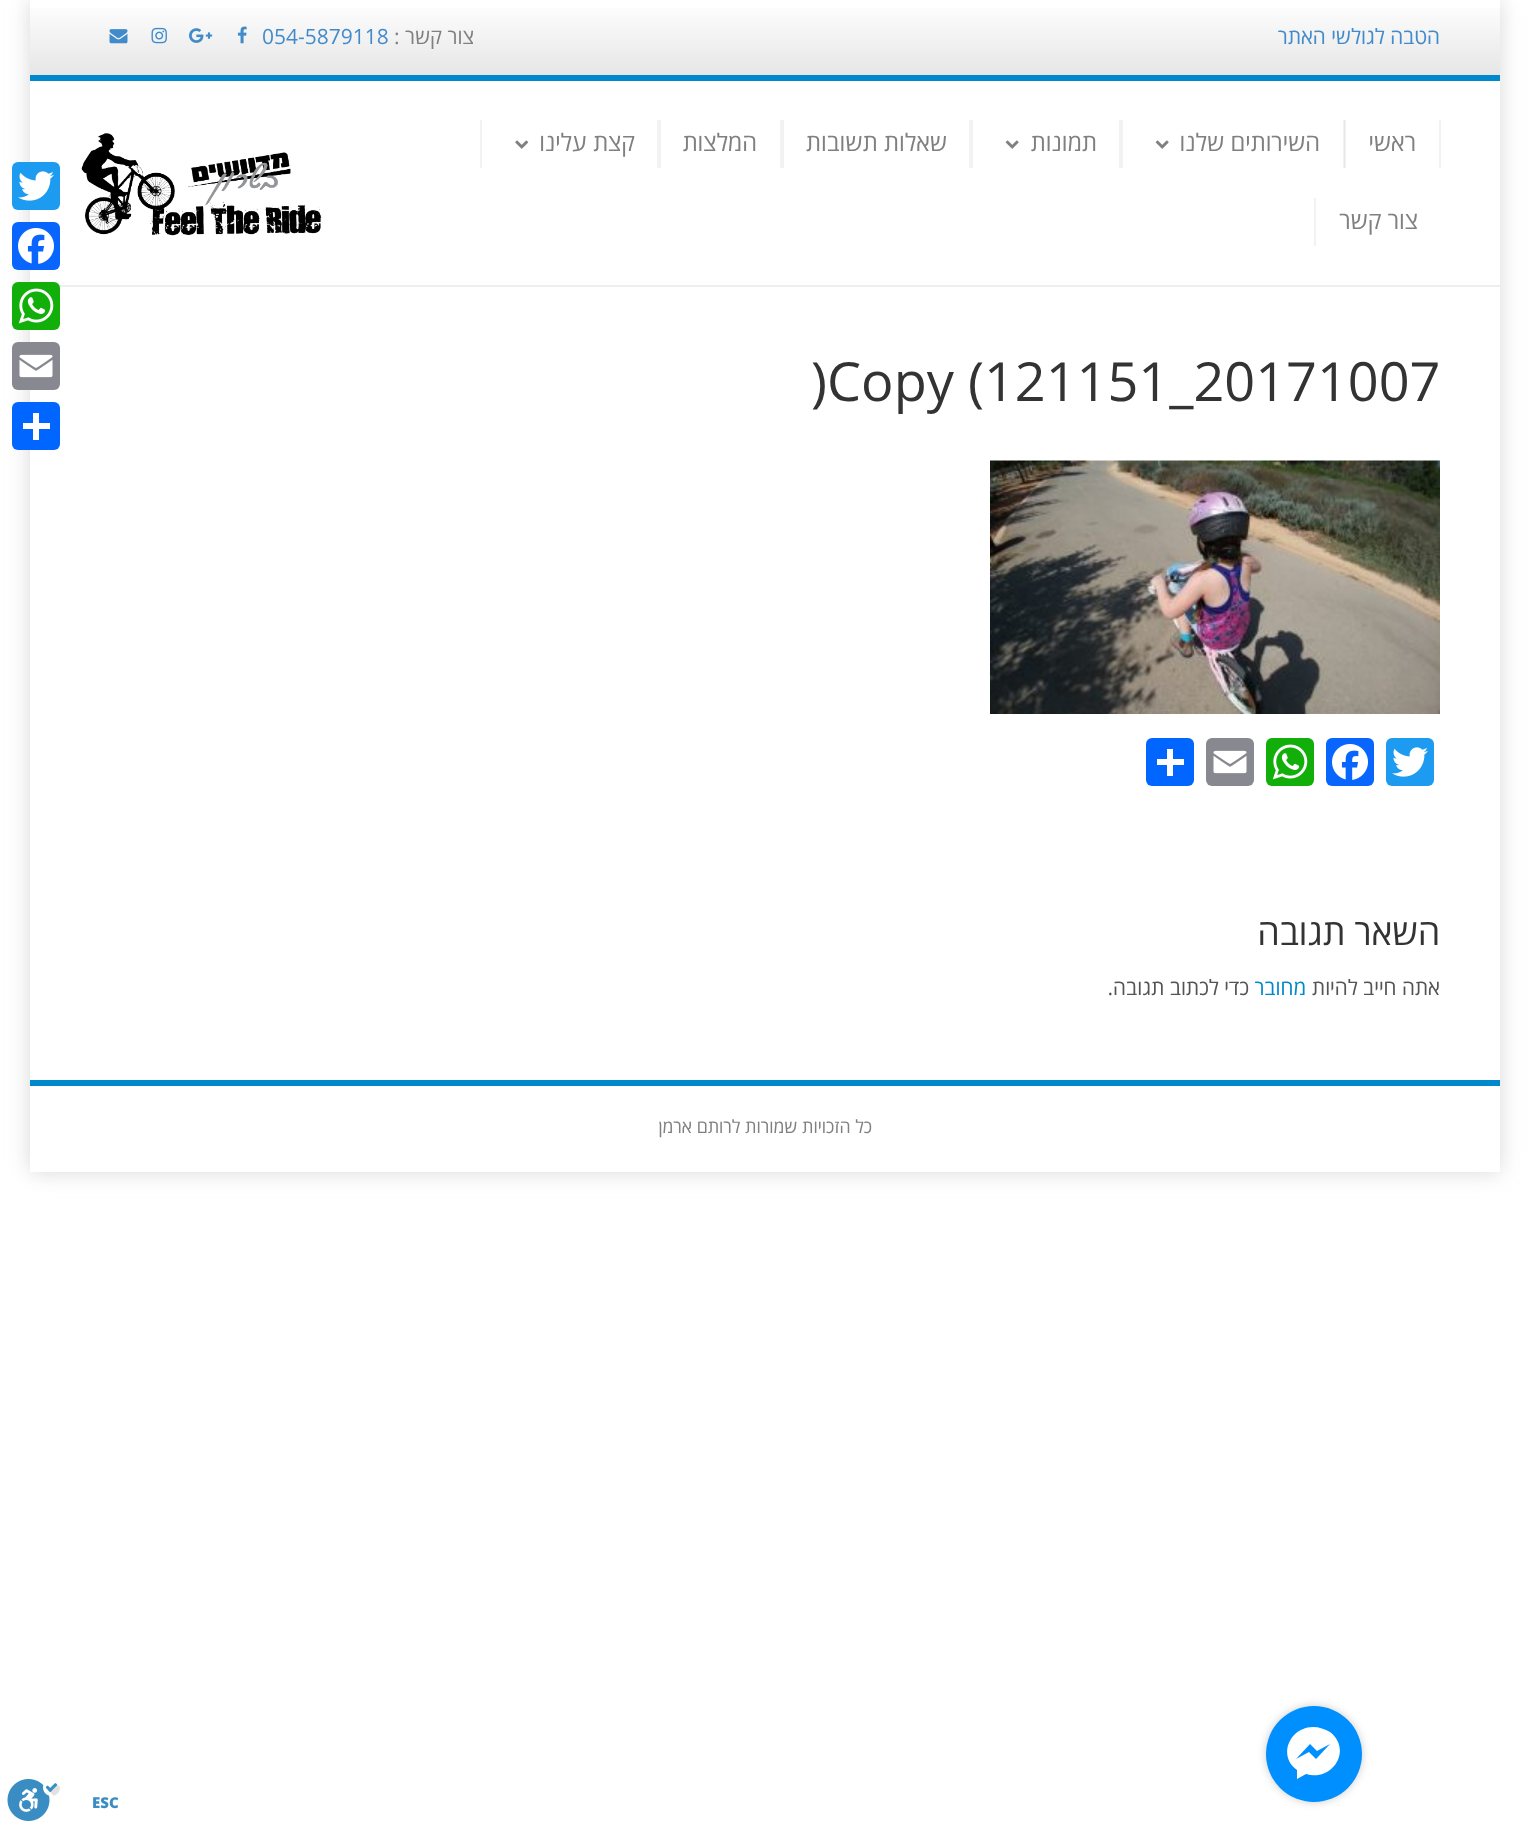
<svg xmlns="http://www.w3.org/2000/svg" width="1530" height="1831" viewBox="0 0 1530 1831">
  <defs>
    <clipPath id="clip1"><path d="M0 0H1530V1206H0ZM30 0H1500V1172H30Z" clip-rule="evenodd"/></clipPath>
    <filter id="blur1" x="-50%" y="-200%" width="200%" height="500%"><feGaussianBlur stdDeviation="11"/></filter>
    <linearGradient id="g1" gradientUnits="userSpaceOnUse" x1="765" y1="0" x2="765" y2="75"><stop offset="0" stop-color="#ffffff"/><stop offset="1" stop-color="#e6e6e6"/></linearGradient>
    <filter id="blur2" x="-50%" y="-200%" width="200%" height="500%"><feGaussianBlur stdDeviation="4"/></filter>
  </defs>
  <rect width="100%" height="100%" fill="#ffffff"/>
  <rect x="1343" y="120" width="1" height="48" fill="#f2f2f2"/>
  <g clip-path="url(#clip1)">
    <rect x="30" y="0" width="1470" height="1172" fill="#d9d9d9" filter="url(#blur1)"/>
  </g>
  <rect x="30" y="8" width="1470" height="67" fill="url(#g1)"/>
  <rect x="30" y="75" width="1470" height="6" fill="#0088cc"/>
  <text x="1440" y="44" font-family="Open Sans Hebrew" font-size="21" direction="rtl" fill="#428bca">הטבה לגולשי האתר</text>
  <text x="474" y="44" font-family="Open Sans Hebrew" font-size="21" direction="rtl" fill="#808080">צור קשר :</text>
  <text x="262" y="44" font-family="Open Sans Hebrew" font-size="21" fill="#428bca">054-5879118</text>
  <image x="237" y="26" width="10" height="18" href="img1.png"/>
  <image x="189" y="28" width="24" height="15" href="img2.png"/>
  <image x="151" y="27" width="16" height="17" href="img3.png"/>
  <image x="109" y="29" width="19" height="15" href="img4.png"/>
  <rect x="59" y="285" width="1441" height="2" fill="#eeeeee"/>
  <rect x="1439" y="120" width="2" height="48" fill="#f2f2f2"/>
  <rect x="1345" y="120" width="1" height="48" fill="#f2f2f2"/>
  <rect x="1344" y="120" width="1" height="48" fill="#e7e7e7"/>
  <text x="1416" y="151" font-family="Open Sans Hebrew" font-size="24" direction="rtl" fill="#808080">ראשי</text>
  <rect x="1119" y="120" width="4" height="48" fill="#f2f2f2"/>
  <text x="1320" y="151" font-family="Open Sans Hebrew" font-size="24" direction="rtl" fill="#808080">השירותים שלנו</text>
  <image x="1155" y="140" width="14" height="9" href="img5.png"/>
  <rect x="969" y="120" width="4" height="48" fill="#f2f2f2"/>
  <text x="1097" y="151" font-family="Open Sans Hebrew" font-size="24" direction="rtl" fill="#808080">תמונות</text>
  <image x="1005" y="140" width="14" height="9" href="img5.png"/>
  <rect x="780" y="120" width="4" height="48" fill="#f2f2f2"/>
  <text x="947" y="151" font-family="Open Sans Hebrew" font-size="24" direction="rtl" fill="#808080">שאלות תשובות</text>
  <rect x="657" y="120" width="4" height="48" fill="#f2f2f2"/>
  <text x="757" y="151" font-family="Open Sans Hebrew" font-size="24" direction="rtl" fill="#808080">המלצות</text>
  <rect x="480" y="120" width="2" height="48" fill="#f2f2f2"/>
  <text x="635" y="151" font-family="Open Sans Hebrew" font-size="24" direction="rtl" fill="#808080">קצת עלינו</text>
  <image x="515" y="140" width="14" height="9" href="img6.png"/>
  <rect x="1314" y="198" width="2" height="48" fill="#f2f2f2"/>
  <text x="1418" y="229" font-family="Open Sans Hebrew" font-size="24" direction="rtl" fill="#808080">צור קשר</text>
  <image x="81" y="133" width="241" height="103" href="img7.png"/>
  <text x="811" y="401" font-family="Open Sans Hebrew" font-size="54" fill="#333333">)Copy (121151_20171007</text>
  <image x="990" y="460" width="450" height="254" href="img8.png"/>
  <rect x="1386" y="738" width="48" height="48" rx="6" fill="#1d9bf0"/>
  <image x="1392" y="747" width="36" height="30" href="img9.png"/>
  <rect x="1326" y="738" width="48" height="48" rx="6" fill="#0866ff"/>
  <image x="1332" y="744" width="36" height="36" href="img10.png"/>
  <rect x="1266" y="738" width="48" height="48" rx="6" fill="#12af0a"/>
  <image x="1272" y="744" width="36" height="36" href="img11.png"/>
  <rect x="1206" y="738" width="48" height="48" rx="6" fill="#888990"/>
  <image x="1213" y="750" width="34" height="24" href="img12.png"/>
  <rect x="1146" y="738" width="48" height="48" rx="6" fill="#0166ff"/>
  <rect x="1167" y="749" width="6" height="27" fill="#ffffff"/>
  <rect x="1157" y="759" width="27" height="6" fill="#ffffff"/>
  <text x="1440" y="945" font-family="Open Sans Hebrew" font-size="36" direction="rtl" fill="#333333">השאר תגובה</text>
  <text x="1440" y="995" font-family="Open Sans Hebrew" font-size="21" direction="rtl" fill="#545454">אתה חייב להיות</text>
  <text x="1306" y="995" font-family="Open Sans Hebrew" font-size="21" direction="rtl" fill="#0088cc">מחובר</text>
  <text x="1249" y="995" font-family="Open Sans Hebrew" font-size="21" direction="rtl" fill="#545454">כדי לכתוב תגובה.</text>
  <rect x="30" y="1171" width="1470" height="1" fill="#ffffff"/>
  <rect x="30" y="1080" width="1470" height="6" fill="#0088cc"/>
  <text x="872" y="1133" font-family="Open Sans Hebrew" font-size="18" direction="rtl" fill="#808080">כל הזכויות שמורות לרותם ארמן</text>
  <rect x="12" y="162" width="48" height="48" rx="6" fill="#1d9bf0"/>
  <image x="18" y="171" width="36" height="30" href="img9.png"/>
  <rect x="12" y="222" width="48" height="48" rx="6" fill="#0866ff"/>
  <image x="18" y="228" width="36" height="36" href="img10.png"/>
  <rect x="12" y="282" width="48" height="48" rx="6" fill="#12af0a"/>
  <image x="18" y="288" width="36" height="36" href="img11.png"/>
  <rect x="12" y="342" width="48" height="48" rx="6" fill="#888990"/>
  <image x="19" y="354" width="34" height="24" href="img12.png"/>
  <rect x="12" y="402" width="48" height="48" rx="6" fill="#0166ff"/>
  <rect x="33" y="413" width="6" height="27" fill="#ffffff"/>
  <rect x="23" y="423" width="27" height="6" fill="#ffffff"/>
  <rect x="1266" y="1706" width="96" height="96" rx="48" fill="#000000" fill-opacity="0.2" filter="url(#blur2)"/>
  <circle cx="1314" cy="1754" r="48" fill="#008fff"/>
  <path d="M1313 1727C1290 1727 1277 1756 1297 1770V1779L1306 1774C1332 1782 1353 1750 1330 1732C1325 1729 1319 1727 1313 1727ZM1316 1759L1309 1752L1296 1759L1310 1744L1317 1751L1330 1744Z" fill="#ffffff"/>
  <text x="92" y="1808" font-family="Open Sans Hebrew" font-size="15" font-weight="800" fill="#3a8dc2">ESC</text>
  <image x="7" y="1779" width="53" height="42" href="img13.png"/>
</svg>
